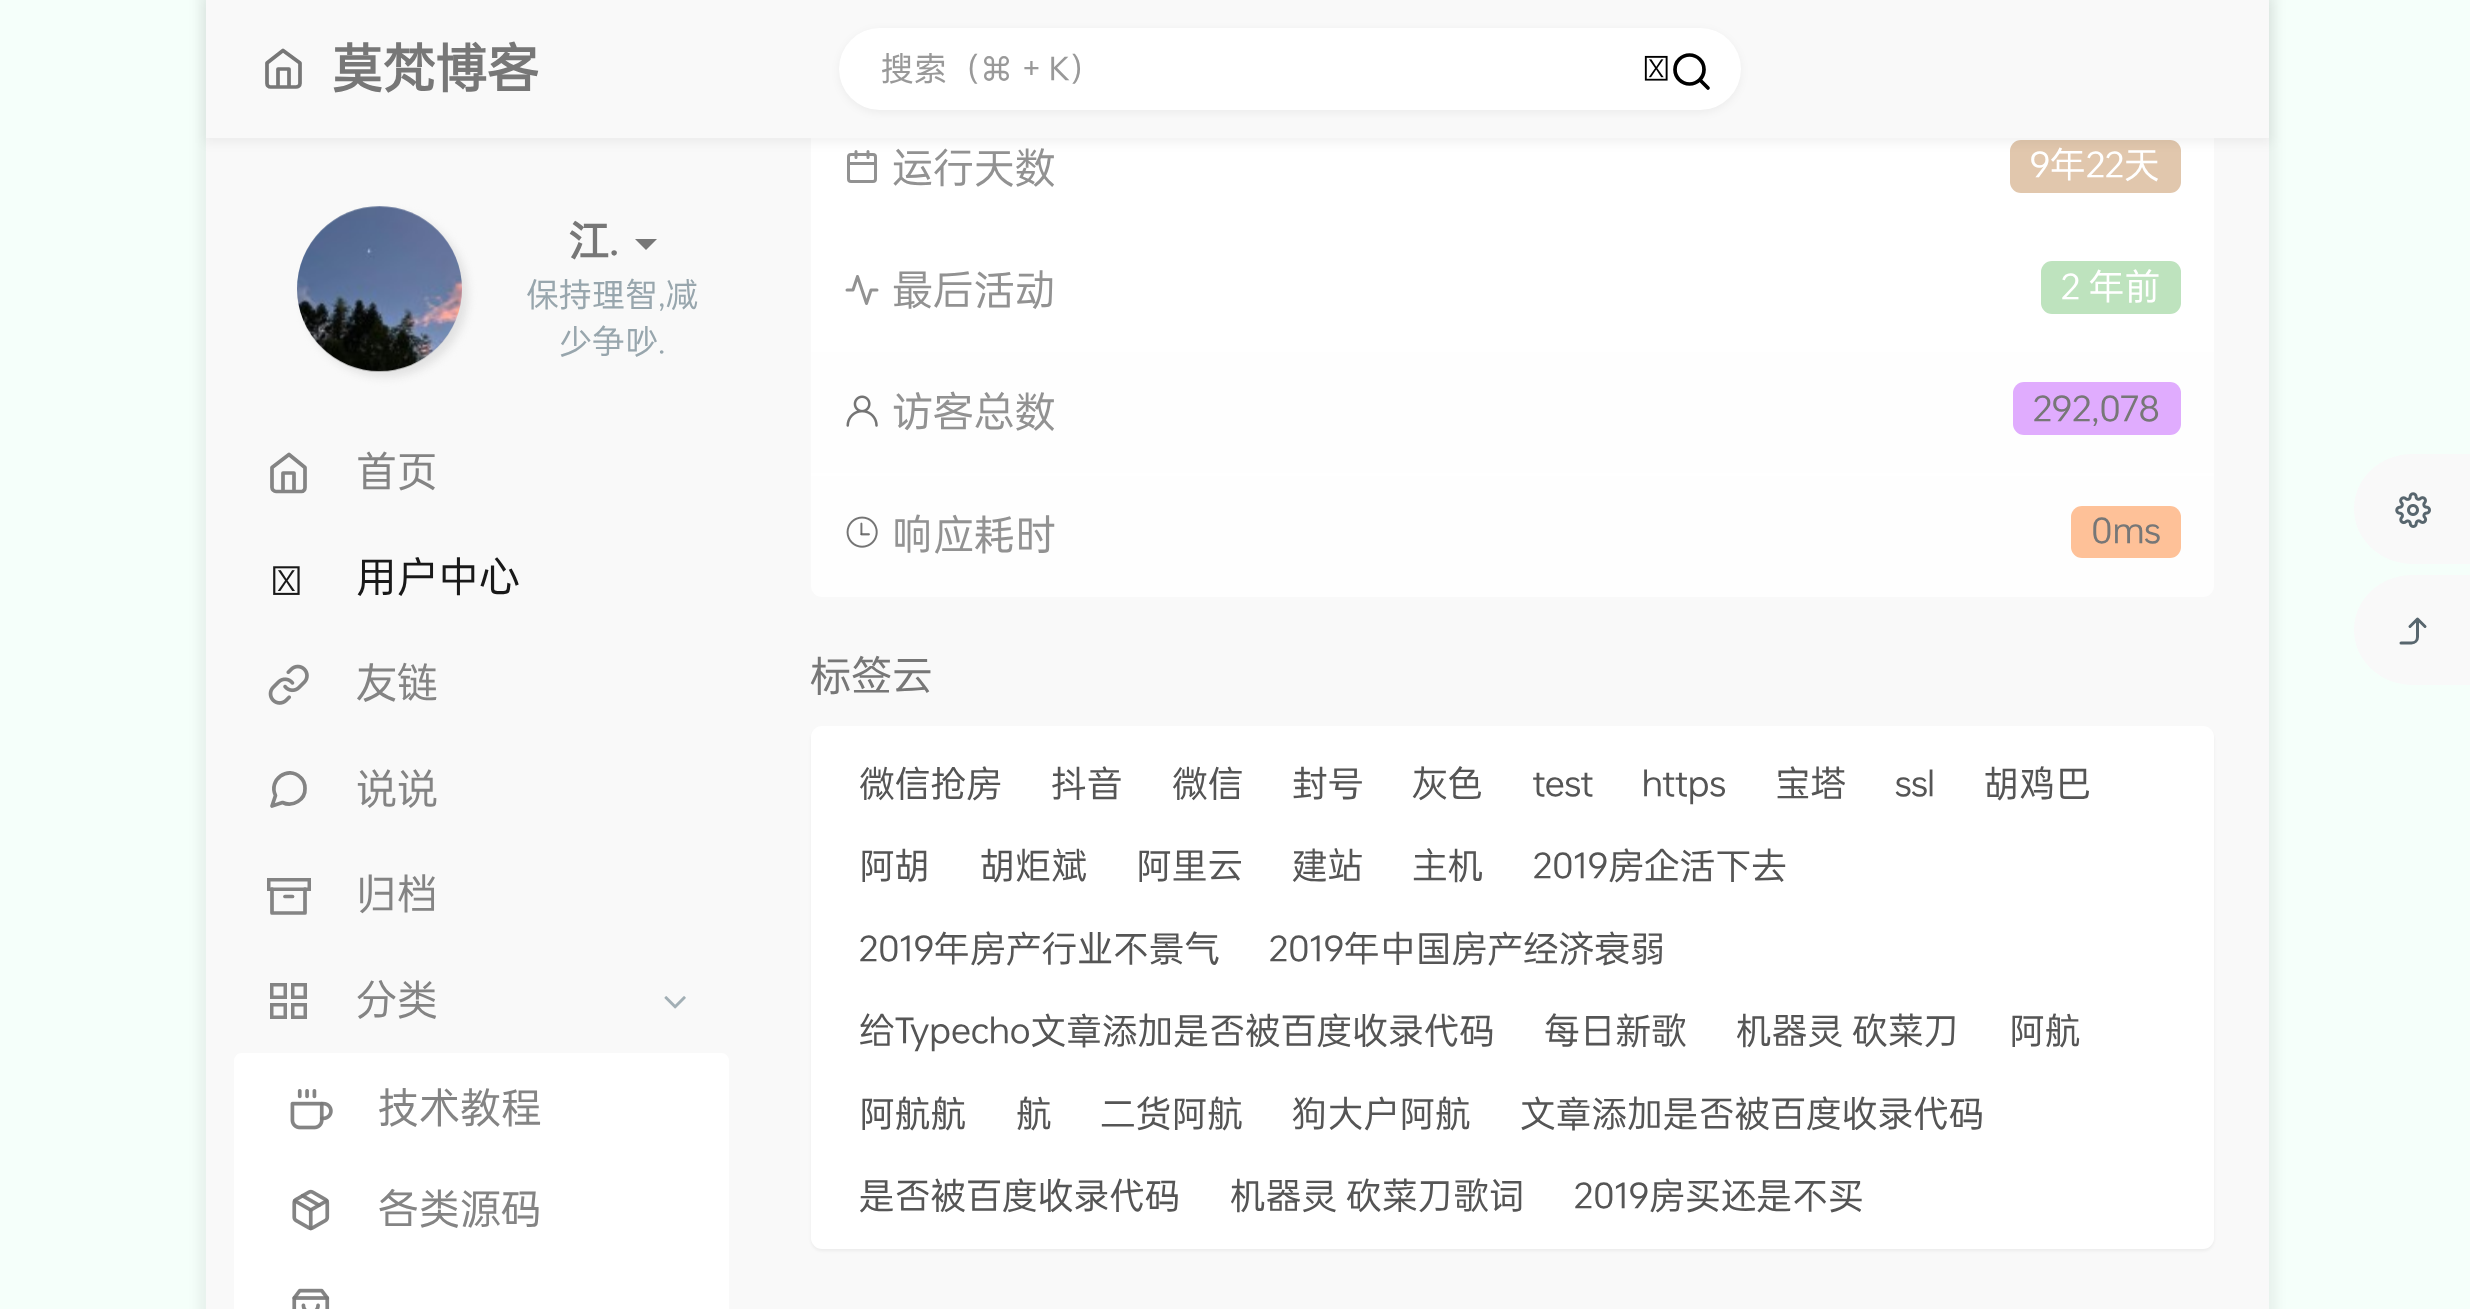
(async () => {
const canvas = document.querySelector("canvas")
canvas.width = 2470
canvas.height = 1309
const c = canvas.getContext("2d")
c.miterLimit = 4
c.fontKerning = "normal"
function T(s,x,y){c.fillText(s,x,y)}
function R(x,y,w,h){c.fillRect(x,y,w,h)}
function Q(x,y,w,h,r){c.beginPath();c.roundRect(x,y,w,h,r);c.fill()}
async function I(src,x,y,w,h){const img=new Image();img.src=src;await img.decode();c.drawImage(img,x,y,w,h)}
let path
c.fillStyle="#f5fffa"
R(0,0,2470,1309)
c.fillStyle="#0000000d"
c.filter="blur(5.5px)"
c.beginPath()
c.rect(198,-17,2079,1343)
c.fill()
c.filter="none"
c.fillStyle="#f9f9f9"
R(206,138,2063,1171)
c.fillStyle="#fff"
R(811,138,1403,214)
c.beginPath()
c.roundRect(848.5,154.5,27,27,2.5)
c.strokeStyle="#929292"
c.lineWidth=3
c.stroke()
path = new Path2D("M868 151.5v6m-12-6v6m-7.5 6h27")
c.lineCap="round"
c.lineJoin="round"
c.stroke(path)
c.fillStyle="#e1c7ad"
Q(2010,140,171,53,11)
c.fillStyle="#0000000d"
c.filter="blur(5.5px)"
c.beginPath()
c.rect(204,0,2068,143)
c.fill()
c.filter="none"
c.fillStyle="#f9f9f9"
R(206,0,2063,138)
c.font="bold 52px 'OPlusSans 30'"
c.fillStyle="#777"
T("莫梵博客",331,88)
path = new Path2D("M267 63l16-12.5l17 12.5v20.5c0 2-2 3.5-4 3.5h-25.5c-2 0-3.5-1.5-3.5-3.5zm11 24v-18h11v18")
c.strokeStyle="#777"
c.lineWidth=3.7
c.stroke(path)
c.fillStyle="#0000000d"
c.filter="blur(4px)"
c.beginPath()
c.roundRect(839,30,902,83,41.5)
c.fill()
c.filter="none"
c.fillStyle="#fff"
Q(839,28,902,82,41)
c.font="33px 'OPlusSans 30'"
c.fillStyle="#999"
T("搜索（",881,81)
c.font="33px DejaVu Sans"
T("⌘",980,81)
c.font="33px 'OPlusSans 30'"
T("+ K）",1022,81)
await I("1.png",1644,55,24,26)
c.beginPath()
c.arc(1689.5,69.5,14.5,0,7)
c.strokeStyle="#000"
c.stroke()
path = new Path2D("M1708 88l-8-8")
c.stroke(path)
c.fillStyle="#e1e1e1"
c.filter="blur(4px)"
c.beginPath()
c.roundRect(303,212,165,165,82.5)
c.fill()
c.filter="none"
await I("2.png",297,206,165,166)
c.font="bold 41px 'OPlusSans 30'"
c.fillStyle="#777"
T("江.",568,256)
path = new Path2D("M635 239h22l-11 11z")
c.fill(path)
c.font="33px 'OPlusSans 30'"
c.fillStyle="#98a6ad"
T("保持理智,减",526,307)
T("少争吵.",559,354)
path = new Path2D("M272 467.5l17-13l16 13v20c0 2-1.5 4-3.5 4h-25.5c-2 0-4-2-4-4zm11 24v-18.5h11v18.5")
c.strokeStyle="#848484"
c.stroke(path)
c.font="41px 'OPlusSans 30'"
c.fillStyle="#848484"
T("首页",356,487)
await I("3.png",273,566,27,29)
c.fillStyle="#191919"
T("用户中心",356,592)
await I("4.png",268,664,41,41)
c.fillStyle="#848484"
T("友链",356,698)
path = new Path2D("M305 788.5c.5 11-12 19-22.5 14l-10.5 3.5l3.5-10.5c-7.5-15.5 12.5-30.5 25-18c3 2.5 4.5 6.5 4.5 11z")
c.stroke(path)
T("说说",356,804)
path = new Path2D("M305 889v24h-33v-24")
c.stroke(path)
c.lineWidth=3.5
c.lineJoin="miter"
c.strokeRect(268.75,879.75,40.5,9.5)
path = new Path2D("M285 896.5h7.5")
c.lineWidth=3.7
c.lineJoin="round"
c.stroke(path)
T("归档",356,909)
c.lineWidth=3.5
c.lineJoin="miter"
c.strokeRect(271.75,984.75,13.5,12.5)
c.strokeRect(292.75,984.75,12.5,12.5)
c.strokeRect(271.75,1004.75,13.5,12.5)
c.strokeRect(292.75,1004.75,12.5,12.5)
T("分类",356,1015)
await I("5.png",664,996,22,13)
c.fillStyle="#fff"
path = new Path2D("M242 1053h479c4.5 0 8 3.5 8 8v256h-495v-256c0-4.5 3.5-8 8-8z")
c.fill(path)
await I("6.png",290,1089,43,41)
c.fillStyle="#848484"
T("技术教程",378,1123)
await I("7.png",292,1189,38,42)
T("各类源码",378,1224)
await I("8.png",292,1288,38,21)
c.fillStyle="#929292"
T("运行天数",892,183)
c.font="35.75px 'OPlusSans 30'"
c.fillStyle="#fff"
T("9年22天",2030,178)
path = new Path2D("M877 290h-6l-4.5 13.5l-9-27l-4.5 13.5h-6")
c.strokeStyle="#929292"
c.lineWidth=3
c.lineJoin="round"
c.stroke(path)
c.font="41px 'OPlusSans 30'"
c.fillStyle="#929292"
T("最后活动",892,305)
c.fillStyle="#bee3be"
Q(2041,261,140,53,11)
c.font="35.75px 'OPlusSans 30'"
c.fillStyle="#fff"
T("2 年前",2061,300)
c.fillStyle="#ffffffcc"
R(811,352,1403,124)
await I("9.png",846,395,32,32)
c.font="41px 'OPlusSans 30'"
c.fillStyle="#929292"
T("访客总数",892,427)
c.fillStyle="#e0acfe"
Q(2013,382,168,53,11)
c.font="35.75px 'OPlusSans 30'"
c.fillStyle="#777"
T("292,078",2033,422)
c.fillStyle="#ffffffcc"
c.beginPath()
c.roundRect(811,473,1403,124,[0,0,11,11])
c.fill()
await I("10.png",846,516,32,32)
c.font="41px 'OPlusSans 30'"
c.fillStyle="#929292"
T("响应耗时",892,550)
c.fillStyle="#fec198"
Q(2071,506,110,52,11)
c.font="35.75px 'OPlusSans 30'"
c.fillStyle="#777"
T("0ms",2091,544)
c.font="41px 'OPlusSans 30'"
T("标签云",810,691)
c.fillStyle="#0000000d"
c.filter="blur(1.5px)"
c.beginPath()
c.roundRect(811,729,1403,522,11)
c.fill()
c.filter="none"
c.fillStyle="#fff"
Q(811,726,1403,523,11)
c.font="35.75px 'OPlusSans 30'"
c.fillStyle="#555"
T("微信抢房",859,797)
T("抖音",1051,797)
T("微信",1172,797)
T("封号",1292,797)
T("灰色",1412,797)
T("test",1533,797)
T("https",1642,797)
T("宝塔",1775,797)
T("ssl",1895,797)
T("胡鸡巴",1984,797)
T("阿胡",859,879)
T("胡炬斌",980,879)
T("阿里云",1136,879)
T("建站",1292,879)
T("主机",1412,879)
T("2019房企活下去",1533,879)
T("2019年房产行业不景气",859,962)
T("2019年中国房产经济衰弱",1269,962)
T("给Typecho文章添加是否被百度收录代码",859,1044)
T("每日新歌",1544,1044)
T("机器灵 砍菜刀",1736,1044)
T("阿航",2009,1044)
T("阿航航",859,1127)
T("航",1016,1127)
T("二货阿航",1100,1127)
T("狗大户阿航",1292,1127)
T("文章添加是否被百度收录代码",1520,1127)
T("是否被百度收录代码",859,1209)
T("机器灵 砍菜刀歌词",1230,1209)
T("2019房买还是不买",1574,1209)
c.fillStyle="#f9f9f9"
path = new Path2D("M2413 575h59v110h-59c-33 0-59-25-59-55c0-31 26-55 59-55z")
c.fill(path)
path = new Path2D("M2410 626.5l7.5-7.5l7.5 7.5m-24 16.5h10.5c3.5 0 6-2.5 6-6v-18")
c.strokeStyle="#58666e"
c.stroke(path)
path = new Path2D("M2413 454h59v110h-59c-33 0-59-25-59-55c0-31 26-55 59-55z")
c.fill(path)
await I("11.png",2395,492,36,36)
})()
